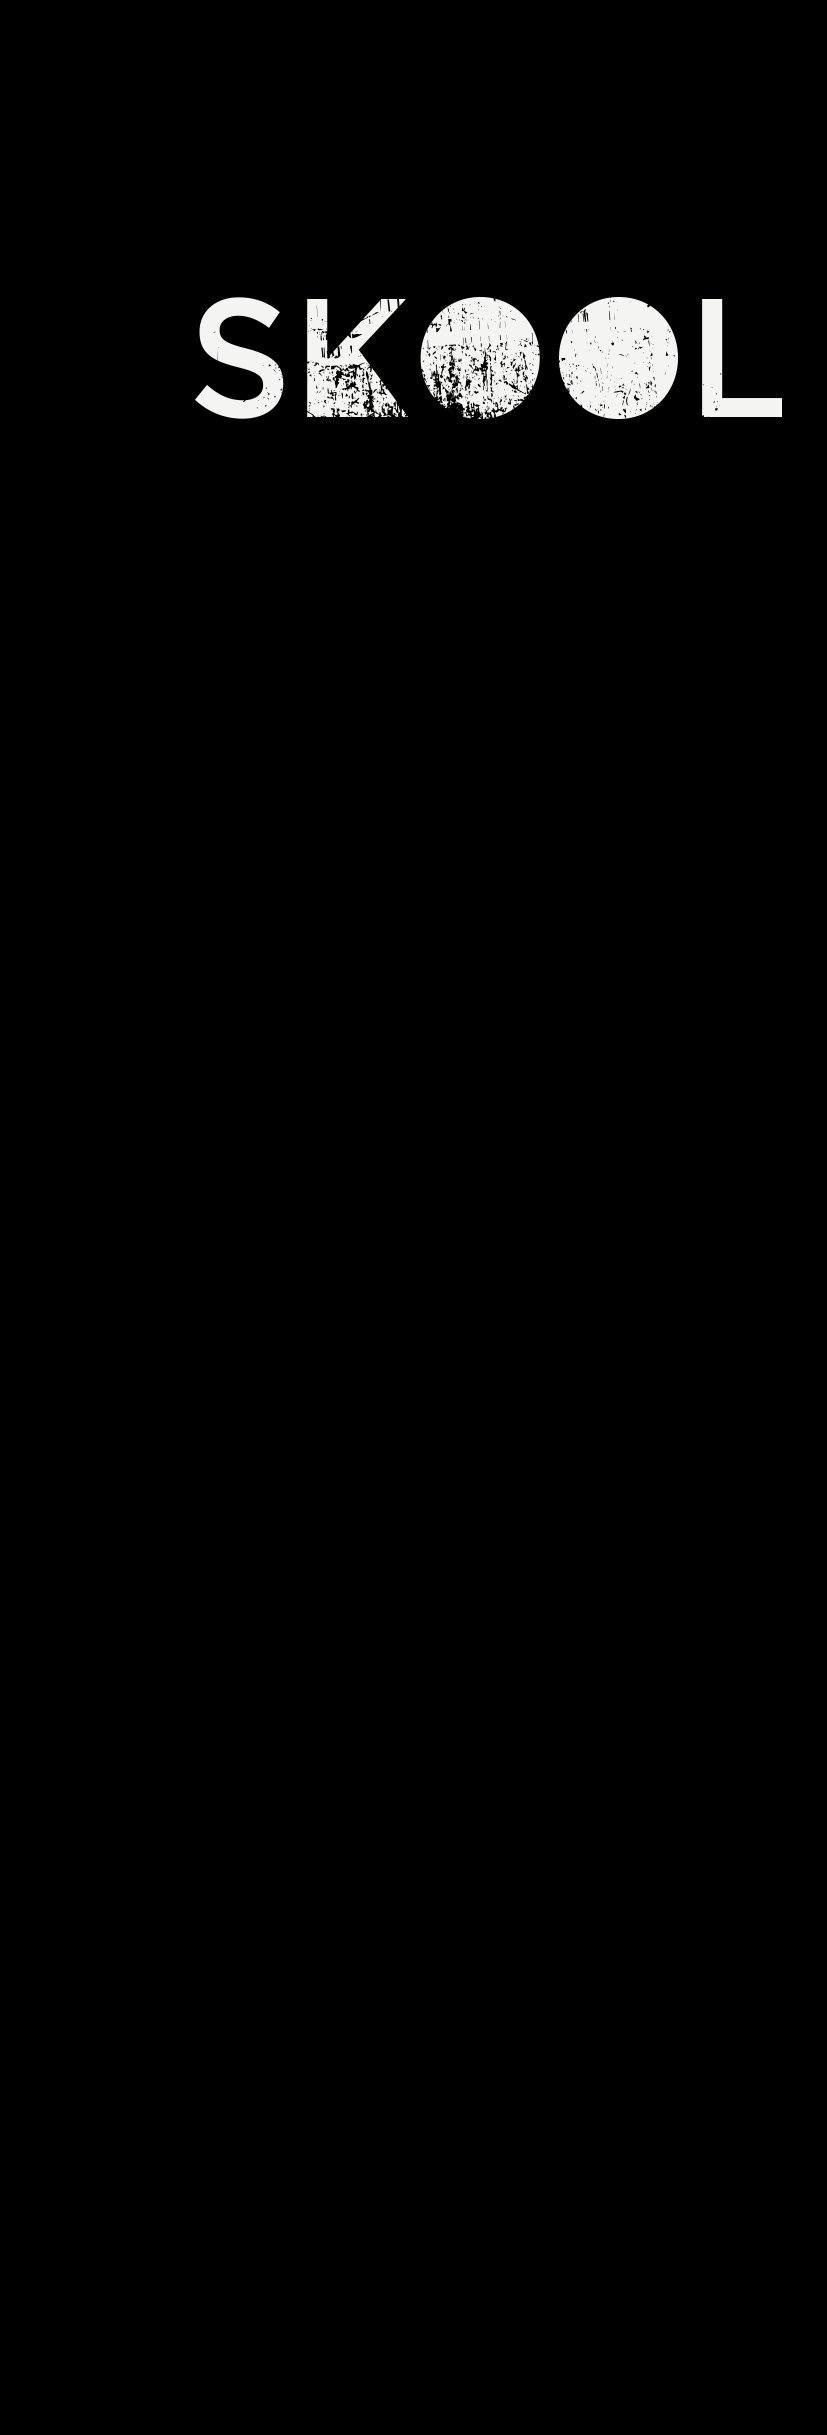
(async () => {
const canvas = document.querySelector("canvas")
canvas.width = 827
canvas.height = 2435
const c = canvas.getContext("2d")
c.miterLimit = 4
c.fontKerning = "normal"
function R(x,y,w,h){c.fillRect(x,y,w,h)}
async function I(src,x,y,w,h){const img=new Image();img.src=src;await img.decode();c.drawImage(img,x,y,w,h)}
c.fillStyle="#000"
R(0,0,827,2435)
await I("1.png",195,297,587,122)
})()
